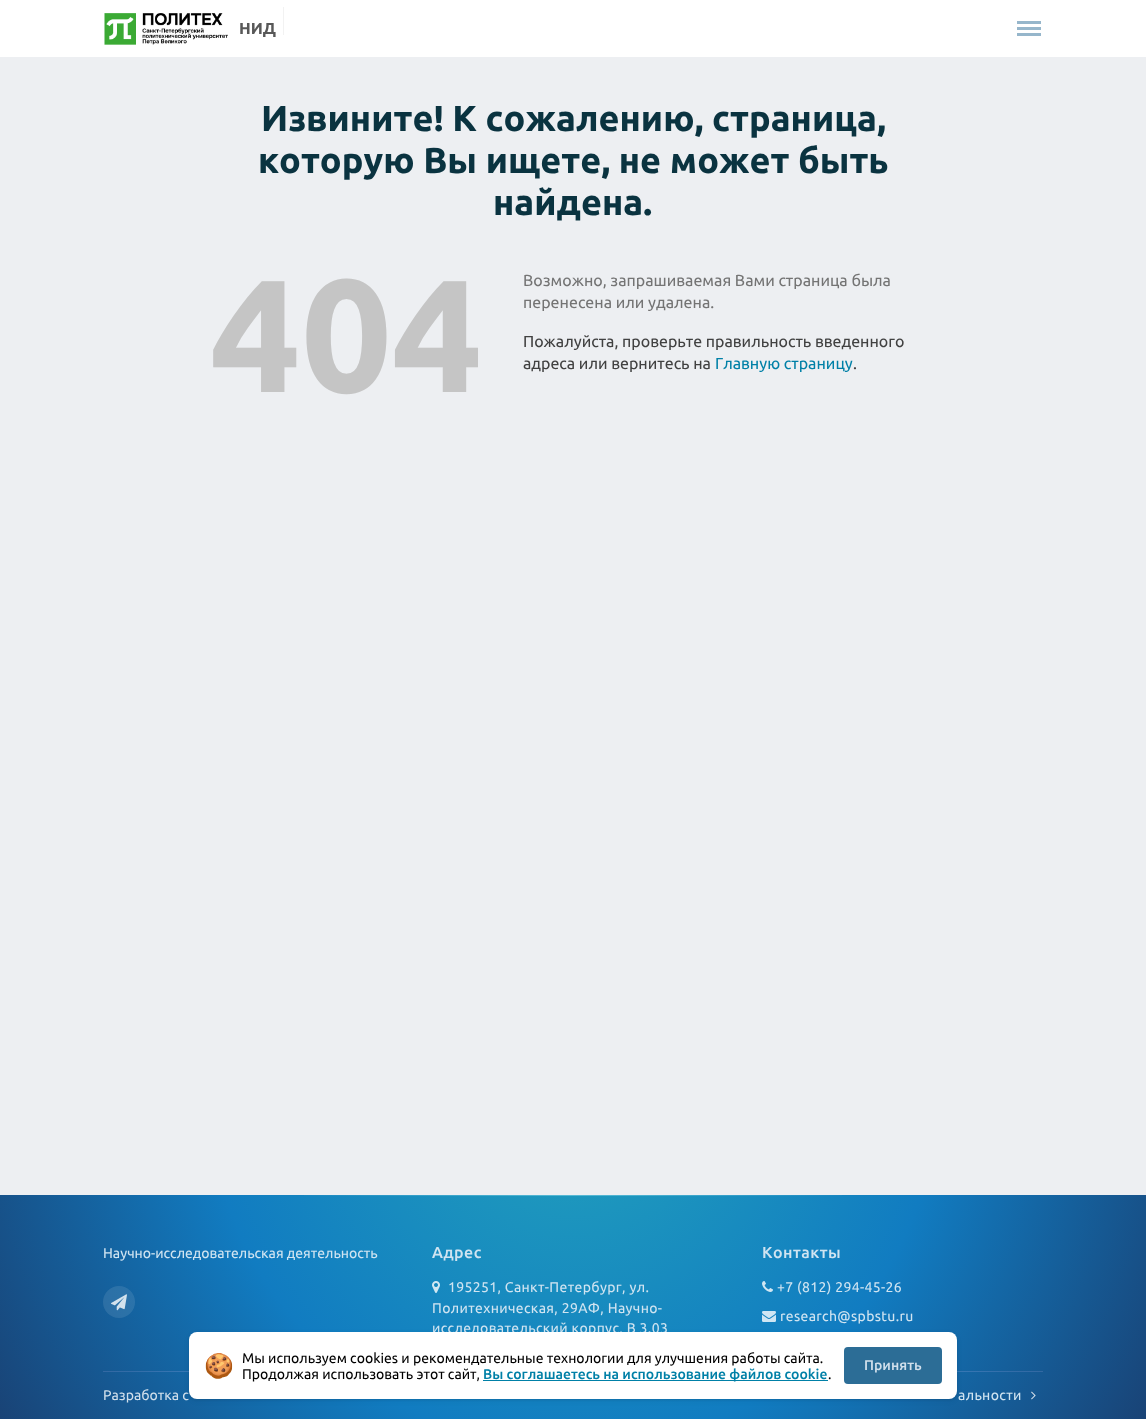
(async () => {
const canvas = document.querySelector("canvas")
canvas.width = 1146
canvas.height = 1419
const c = canvas.getContext("2d")
c.miterLimit = 4
c.fontKerning = "none"
function T(s,x,y){c.fillText(s,x,y)}
function R(x,y,w,h){c.fillRect(x,y,w,h)}
function Q(x,y,w,h,r){c.beginPath();c.roundRect(x,y,w,h,r);c.fill()}
async function I(src,x,y,w,h){const img=new Image();img.src=src;await img.decode();c.drawImage(img,x,y,w,h)}
let gradient
c.fillStyle="#edeff2"
R(0,0,1146,1419)
c.fillStyle="#fff"
R(0,0,1146,57)
await I("1.png",104,13,124,32)
c.font="bold 16px Ubuntu"
c.fillStyle="#585858"
T("НИД",239,34)
c.fillStyle="#f2f2f2"
R(283,7,1,28)
c.fillStyle="#96b6cb"
R(1017,27,24,3)
R(1017,21,24,3)
R(1017,33,24,3)
c.font="bold 36px Ubuntu"
c.fillStyle="#0a3340"
T("Извините! К сожалению, страница,",261,131)
T("которую Вы ищете, не может быть",258,173)
T("найдена.",493,215)
c.font="bold 160px Ubuntu"
c.fillStyle="#c5c5c5"
T("404",210,392)
c.font="16px Ubuntu"
c.fillStyle="#747474"
T("Возможно, запрашиваемая Вами страница была",523,286)
T("перенесена или удалена.",523,308)
c.fillStyle="#414141"
T("Пожалуйста, проверьте правильность введенного",523,347)
T("адреса или вернитесь на",523,369)
c.fillStyle="#0080a7"
T("Главную страницу",715,369)
c.fillStyle="#414141"
T(".",853,369)
gradient = c.createRadialGradient(573,1083,0,573,1083,664)
gradient.addColorStop(.1,"#1f9bbd")
gradient.addColorStop(.55,"#117cc1")
gradient.addColorStop(1,"#194376")
c.fillStyle = gradient
R(0,1195,1146,224)
gradient = c.createLinearGradient(6.6,1134,1139,1257)
gradient.addColorStop(.25,"#c4faff00")
gradient.addColorStop(.5,"#c4faff59")
gradient.addColorStop(.75,"#c4faff00")
c.fillStyle = gradient
R(304,1195,538,1)
c.font="14px Ubuntu"
c.fillStyle="#d0e4f1"
T("Научно-исследовательская деятельность",103,1258)
c.fillStyle="#ffffff1a"
c.beginPath()
c.arc(119,1302,16,0,7)
c.fill()
await I("2.png",111,1294,16,17)
c.letterSpacing="0.5px"
c.font="500 16px Ubuntu"
c.fillStyle="#d0e4f1"
T("Адрес",432,1258)
await I("3.png",432,1281,8,12)
c.letterSpacing="0.35px"
c.font="14px Ubuntu"
T("195251, Санкт-Петербург, ул.",448,1292)
T("Политехническая, 29АФ, Научно-",432,1313)
T("исследовательский корпус, В 3.03",432,1333)
c.letterSpacing="0.5px"
c.font="500 16px Ubuntu"
T("Контакты",762,1258)
await I("4.png",762,1281,11,11)
c.letterSpacing="0.35px"
c.font="14px Ubuntu"
T("+7 (812) 294-45-26",777,1292)
await I("5.png",762,1311,14,11)
T("research@spbstu.ru",780,1321)
gradient = c.createLinearGradient(108,1323,1038,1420)
gradient.addColorStop(.03,"#d7c4ff26")
gradient.addColorStop(.5,"#ffffff59")
gradient.addColorStop(.97,"#d7c4ff26")
c.fillStyle = gradient
R(103,1371,940,1)
c.letterSpacing="0px"
c.fillStyle="#d0dfeb"
T("Разработка с",103,1400)
c.letterSpacing="0.35px"
c.fillStyle="#d0e4f1"
T("альности",958,1400)
await I("6.png",1031,1391,5,9)
c.fillStyle="#00000012"
c.filter="blur(1px)"
c.beginPath()
c.roundRect(189,1333,768,67,8)
c.fill()
c.filter="none"
c.fillStyle="#0a254017"
c.filter="blur(2.5px)"
c.beginPath()
c.roundRect(189,1334,768,67,8)
c.fill()
c.filter="none"
c.fillStyle="#fff"
Q(189,1332,768,67,8)
c.letterSpacing="0px"
c.font="24px Noto Color Emoji"
c.fillStyle="#000"
T("🍪",204,1374)
c.font="14px Ubuntu"
T("Мы используем cookies и рекомендательные технологии для улучшения работы сайта.",242,1363)
T("Продолжая использовать этот сайт,",242,1379)
c.fillStyle="#0080a7"
R(483,1380,345,1)
c.font="500 14px Ubuntu"
T("Вы соглашаетесь на использование файлов cookie",483,1379)
c.font="14px Ubuntu"
c.fillStyle="#000"
T(".",828,1379)
c.fillStyle="#2c6d96"
Q(844,1347,98,37,4)
c.font="500 14px Ubuntu"
c.fillStyle="#d0dfeb"
T("Принять",864,1370)
})()
